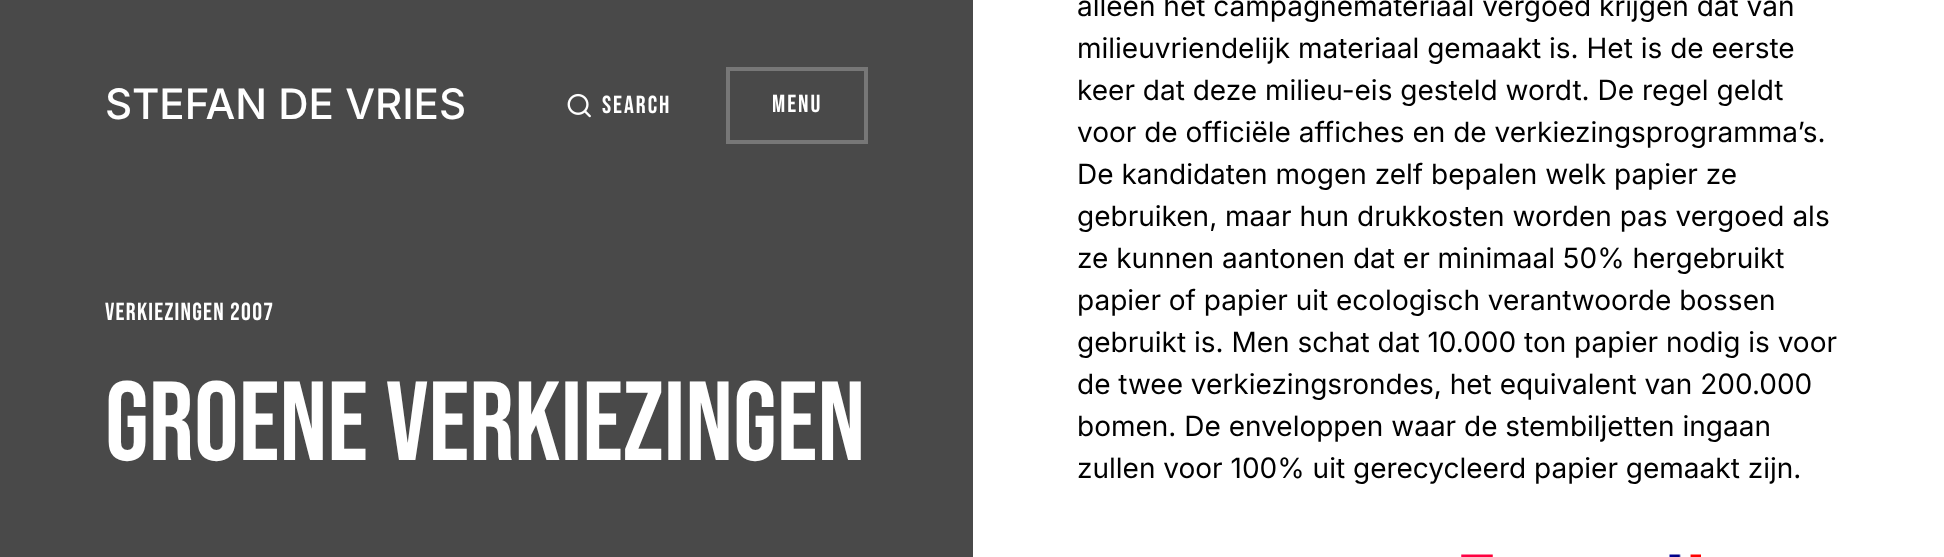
(async () => {
const canvas = document.querySelector("canvas")
canvas.width = 1944
canvas.height = 557
const c = canvas.getContext("2d")
c.miterLimit = 4
c.fontKerning = "normal"
function T(s,x,y){c.fillText(s,x,y)}
function R(x,y,w,h){c.fillRect(x,y,w,h)}
async function I(src,x,y,w,h){const img=new Image();img.src=src;await img.decode();c.drawImage(img,x,y,w,h)}
c.fillStyle="#fff"
R(0,0,1944,557)
c.fillStyle="#494949"
R(0,0,973,557)
c.font="500 42px Inter"
c.fillStyle="#fff"
T("STEFAN DE VRIES",105,119)
await I("1.png",567,93,24,25)
c.letterSpacing="2px"
c.font="24.5px Bebas Neue"
T("Search",602,113)
c.strokeStyle="#777"
c.lineWidth=4
c.strokeRect(728,69,138,73)
T("Menu",772,112)
c.letterSpacing="1.25px"
T("Verkiezingen 2007",105,320)
c.letterSpacing="0px"
c.font="112px Bebas Neue"
T("Groene verkiezingen",105,460)
c.font="28px Inter"
c.fillStyle="#000"
T("alleen het campagnemateriaal vergoed krijgen dat van",1077,16)
T("milieuvriendelijk materiaal gemaakt is. Het is de eerste",1077,58)
T("keer dat deze milieu-eis gesteld wordt. De regel geldt",1077,100)
T("voor de officiële affiches en de verkiezingsprogramma’s.",1077,142)
T("De kandidaten mogen zelf bepalen welk papier ze",1077,184)
T("gebruiken, maar hun drukkosten worden pas vergoed als",1077,226)
T("ze kunnen aantonen dat er minimaal 50% hergebruikt",1077,268)
T("papier of papier uit ecologisch verantwoorde bossen",1077,310)
T("gebruikt is. Men schat dat 10.000 ton papier nodig is voor",1077,352)
T("de twee verkiezingsrondes, het equivalent van 200.000",1077,394)
T("bomen. De enveloppen waar de stembiljetten ingaan",1077,436)
T("zullen voor 100% uit gerecycleerd papier gemaakt zijn.",1077,478)
await I("2.png",1461,554,32,3)
await I("3.png",1669,554,32,3)
})()
